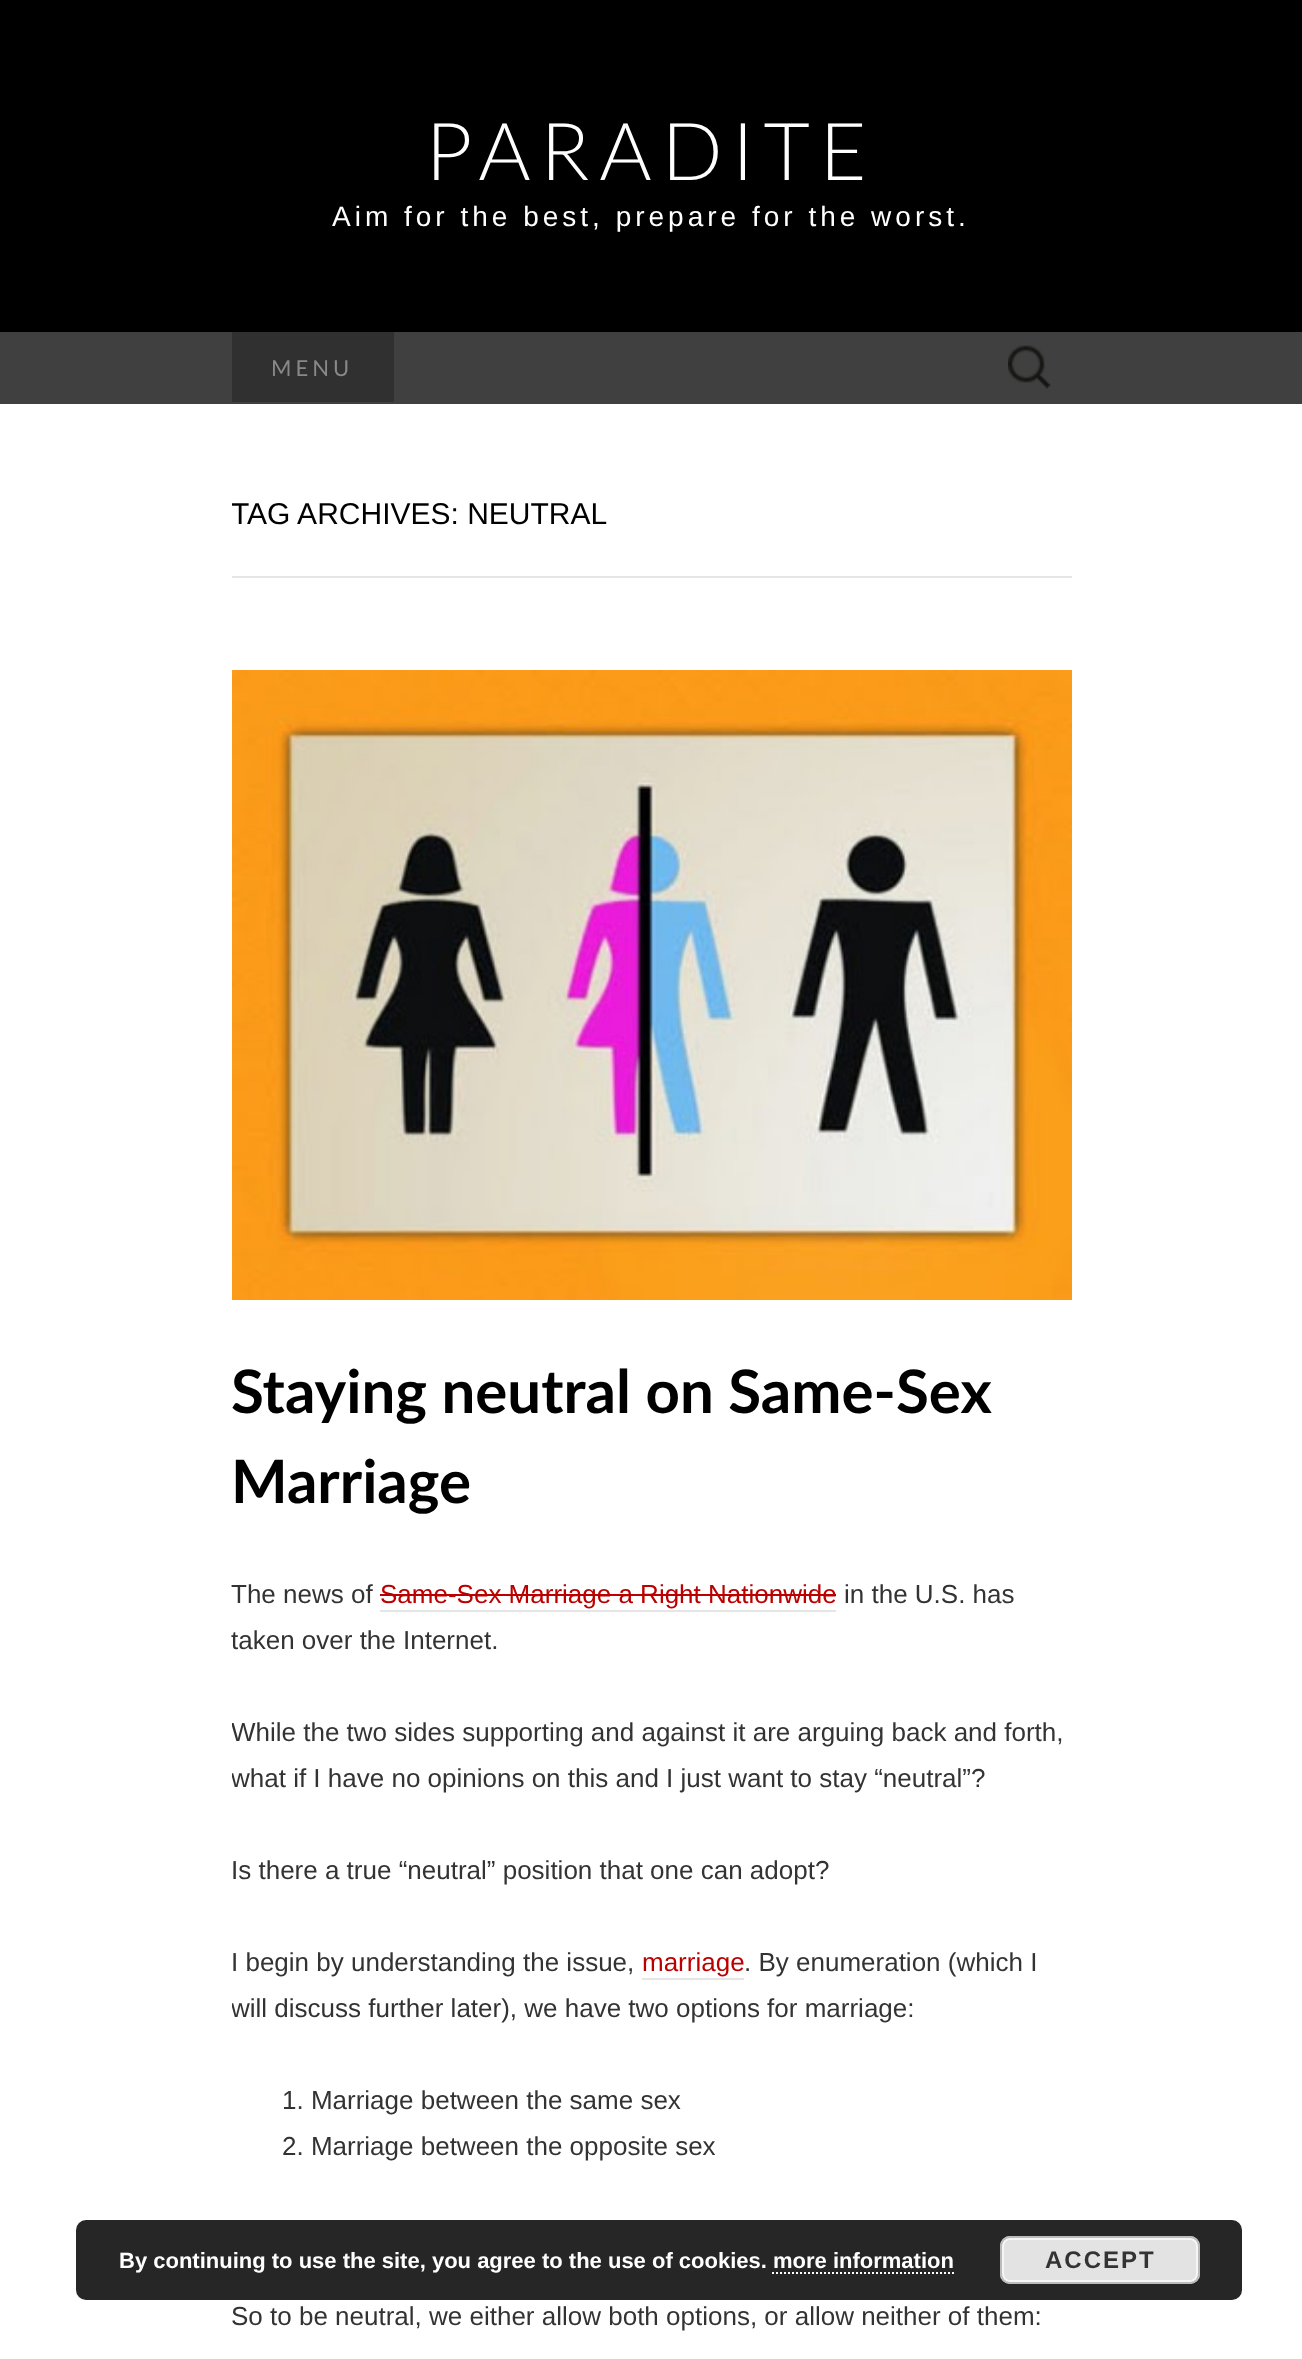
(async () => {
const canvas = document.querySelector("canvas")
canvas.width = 1302
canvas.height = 2359
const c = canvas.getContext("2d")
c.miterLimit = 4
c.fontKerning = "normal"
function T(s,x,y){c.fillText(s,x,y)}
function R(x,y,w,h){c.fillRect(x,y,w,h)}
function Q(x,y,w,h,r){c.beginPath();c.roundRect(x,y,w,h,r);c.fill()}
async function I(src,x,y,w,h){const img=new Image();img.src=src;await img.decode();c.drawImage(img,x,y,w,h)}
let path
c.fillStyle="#fff"
R(0,0,1302,2359)
c.fillStyle="#000"
R(0,0,1302,332)
c.letterSpacing="10px"
c.font="300 80px Lato"
c.fillStyle="#fff"
T("PARADITE",426,180)
c.letterSpacing="4px"
c.font="28px Liberation Sans"
T("Aim for the best, prepare for the worst.",332,226)
c.fillStyle="#404040"
R(0,332,1302,72)
c.fillStyle="#303030"
R(232,332,162,70)
c.font="22px Lato"
c.fillStyle="#888"
T("MENU",271,376)
await I("1.png",1008,345,43,44)
c.fillStyle="#e6e6e6"
R(232,576,840,2)
c.save()
c.beginPath()
c.rect(232,404,840,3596)
c.clip()
c.letterSpacing="0px"
c.font="30px Liberation Sans"
c.fillStyle="#000"
T("TAG ARCHIVES: NEUTRAL",231,524)
c.restore()
await I("2.png",232,670,840,630)
c.letterSpacing="0px"
c.font="bold 60px Lato"
c.fillStyle="#000"
T("Staying neutral on Same-Sex",231,1413)
T("Marriage",231,1503)
c.font="26px Liberation Sans"
c.fillStyle="#333"
T("The news of",231,1603)
c.fillStyle="#b00"
T("Same-Sex Marriage a Right Nationwide",380,1603)
c.fillStyle="#e6e6e6"
R(380,1610,456,2)
c.fillStyle="#b00"
R(380,1594,456,2)
c.fillStyle="#333"
T("in the U.S. has",844,1603)
T("taken over the Internet.",231,1649)
c.save()
c.beginPath()
c.rect(232,404,840,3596)
c.clip()
T("While the two sides supporting and against it are arguing back and forth,",231,1741)
T("what if I have no opinions on this and I just want to stay “neutral”?",231,1787)
c.restore()
T("Is there a true “neutral” position that one can adopt?",231,1879)
T("I begin by understanding the issue,",231,1971)
c.fillStyle="#b00"
T("marriage",642,1971)
c.fillStyle="#e6e6e6"
R(642,1978,102,2)
c.fillStyle="#333"
T(". By enumeration (which I",744,1971)
c.save()
c.beginPath()
c.rect(232,404,840,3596)
c.clip()
T("will discuss further later), we have two options for marriage:",231,2017)
c.restore()
T("1. Marriage between the same sex",282,2109)
T("2. Marriage between the opposite sex",282,2155)
T("So to be neutral, we either allow both options, or allow neither of them:",231,2325)
c.fillStyle="#000000d9"
Q(76,2220,1166,80,10)
c.font="bold 22px Liberation Sans"
c.fillStyle="#fff"
T("By continuing to use the site, you agree to the use of cookies. more information",119,2268)
c.fillStyle="#e3e3e3"
Q(1000,2236,200,48,10)
c.beginPath()
c.roundRect(1003,2239,194,42,7)
c.strokeStyle="#f6f6f6"
c.lineWidth=2
c.stroke()
c.beginPath()
c.roundRect(1001,2237,198,46,9)
c.strokeStyle="#bbb"
c.stroke()
c.letterSpacing="2px"
c.font="bold 24px Liberation Sans"
c.fillStyle="#333"
T("ACCEPT",1045,2268)
path = new Path2D("M772 2273h182")
c.strokeStyle="#fff"
c.setLineDash([2,2])
c.stroke(path)
})()
